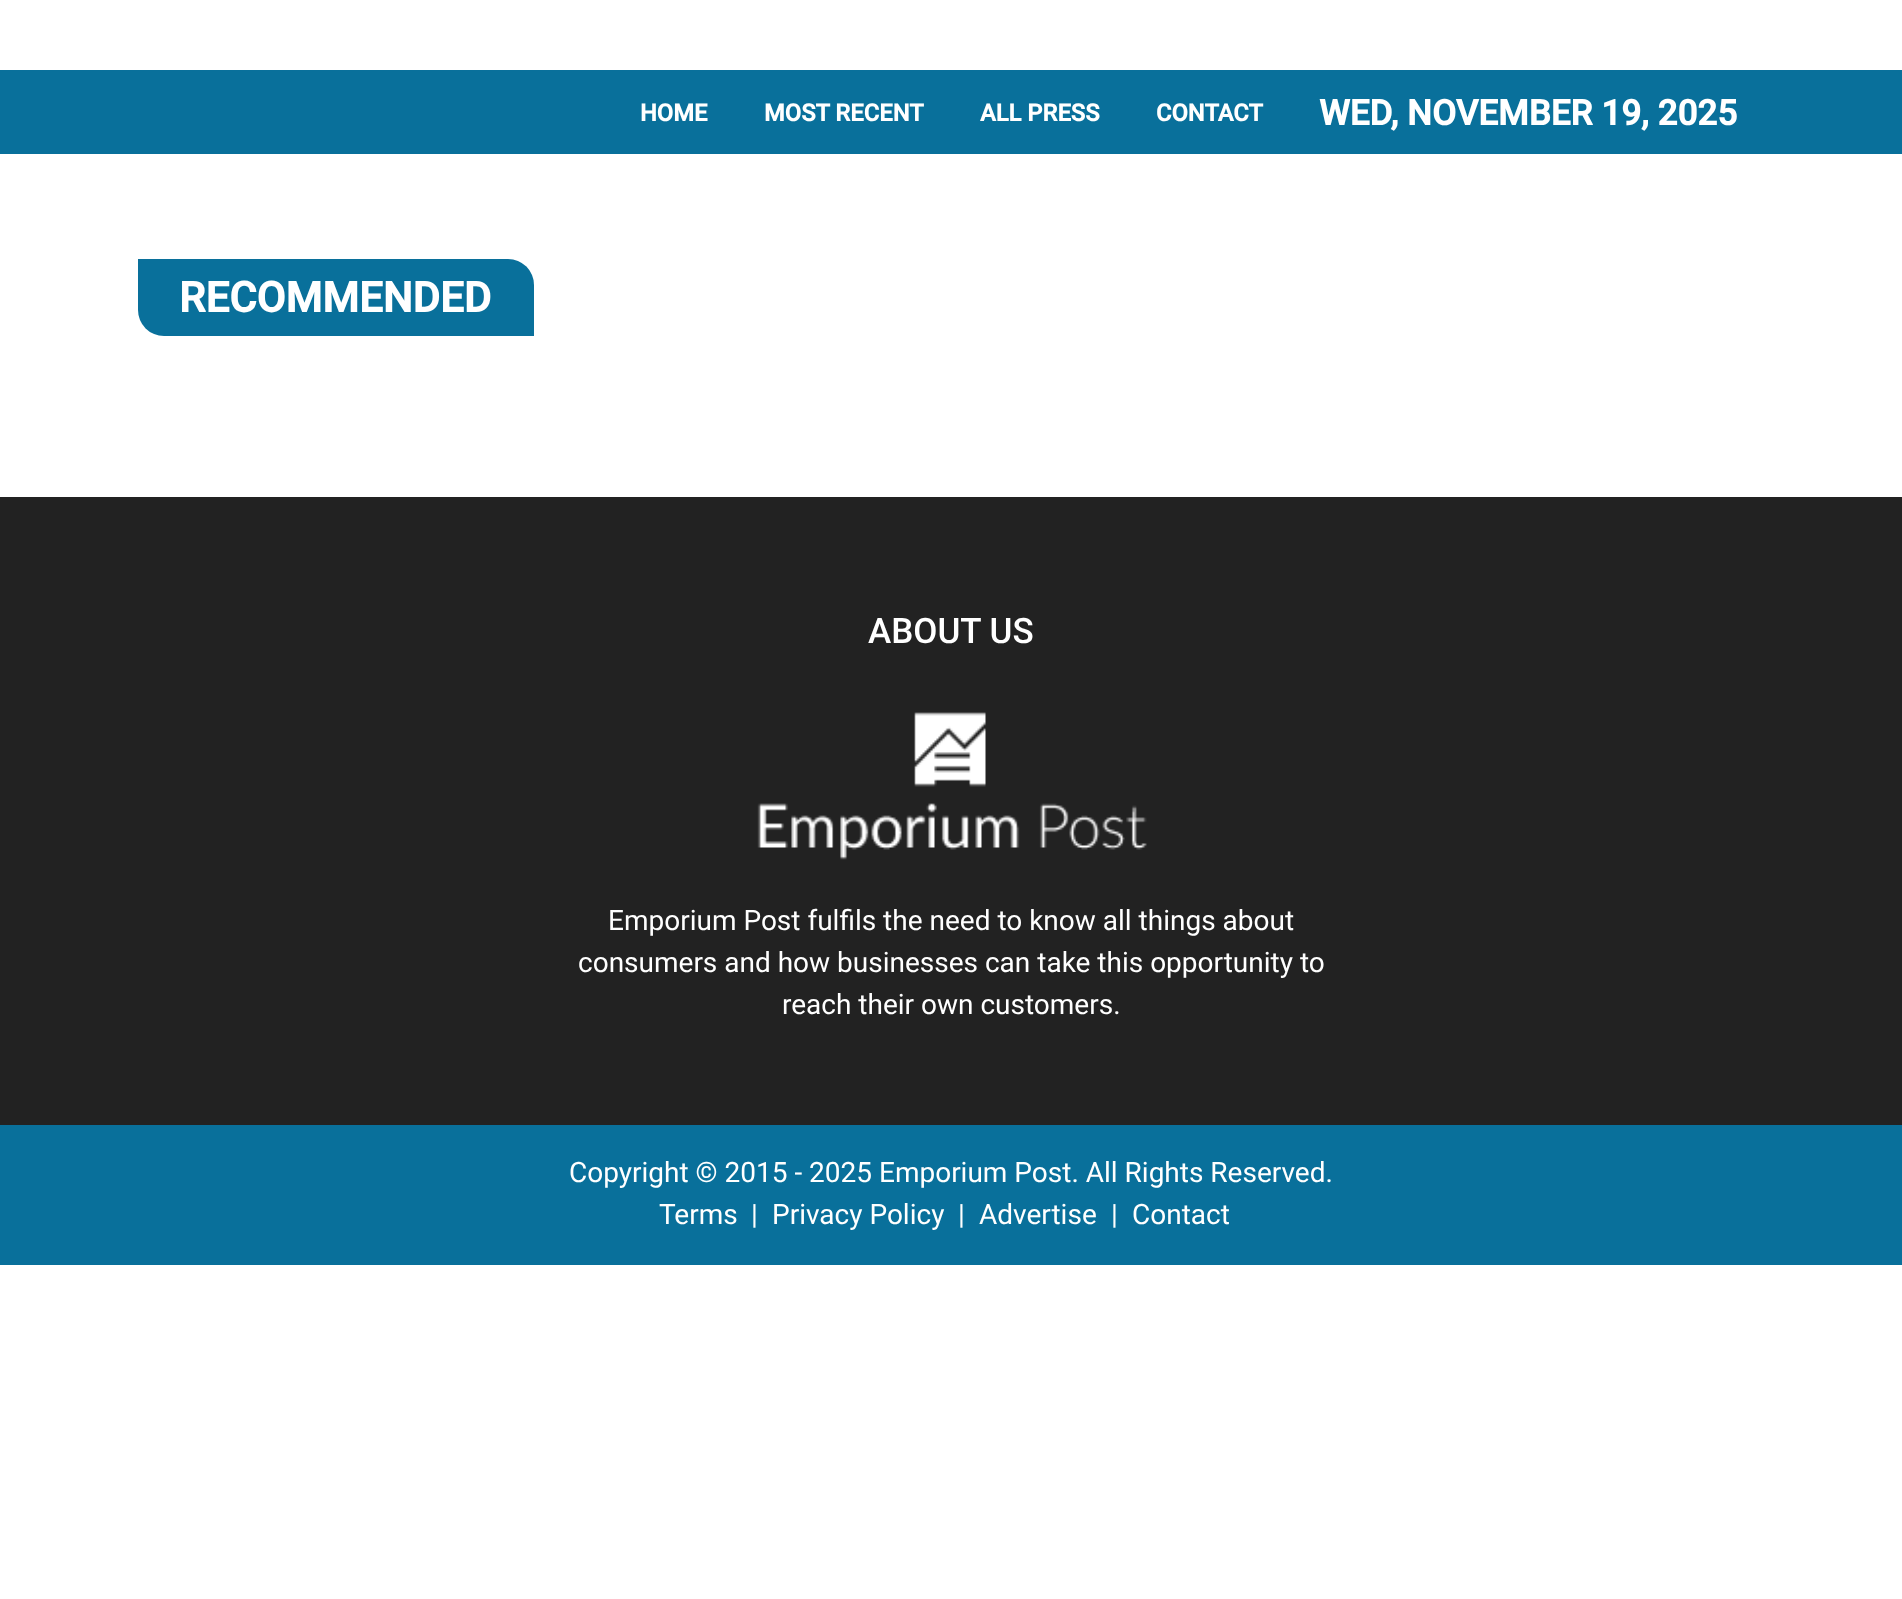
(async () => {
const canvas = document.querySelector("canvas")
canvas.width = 1902
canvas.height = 1599
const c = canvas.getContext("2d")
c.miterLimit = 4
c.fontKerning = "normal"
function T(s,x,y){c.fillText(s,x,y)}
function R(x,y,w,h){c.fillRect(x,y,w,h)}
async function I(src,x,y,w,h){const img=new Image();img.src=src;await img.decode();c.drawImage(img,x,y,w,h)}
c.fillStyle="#fff"
R(0,0,1902,1599)
c.fillStyle="#09709b"
R(0,70,1902,84)
c.font="bold 23.75px Roboto"
c.fillStyle="#fff"
T("HOME",640,121)
T("MOST RECENT",764,121)
T("ALL PRESS",980,121)
T("CONTACT",1156,121)
c.font="bold 35px Roboto"
T("WED, NOVEMBER 19, 2025",1319,125)
c.fillStyle="#09709b"
c.beginPath()
c.roundRect(138,259,396,77,[0,26,0,26])
c.fill()
c.font="bold 42px Roboto"
c.fillStyle="#fff"
T("RECOMMENDED",179,312)
c.fillStyle="#222"
R(0,497,1902,628)
c.font="500 35px Roboto"
c.fillStyle="#fff"
T("ABOUT US",868,643)
await I("1.png",757,712,390,148)
c.font="28px Roboto"
T("Emporium Post fulfils the need to know all things about",608,930)
T("consumers and how businesses can take this opportunity to",578,972)
T("reach their own customers.",782,1014)
c.fillStyle="#09709b"
R(0,1125,1902,140)
c.fillStyle="#fff"
T("Copyright © 2015 - 2025 Emporium Post. All Rights Reserved.",569,1182)
T("Terms",659,1224)
T("|",751,1224)
T("Privacy Policy",772,1224)
T("|",958,1224)
T("Advertise",979,1224)
T("|",1111,1224)
T("Contact",1132,1224)
})()
